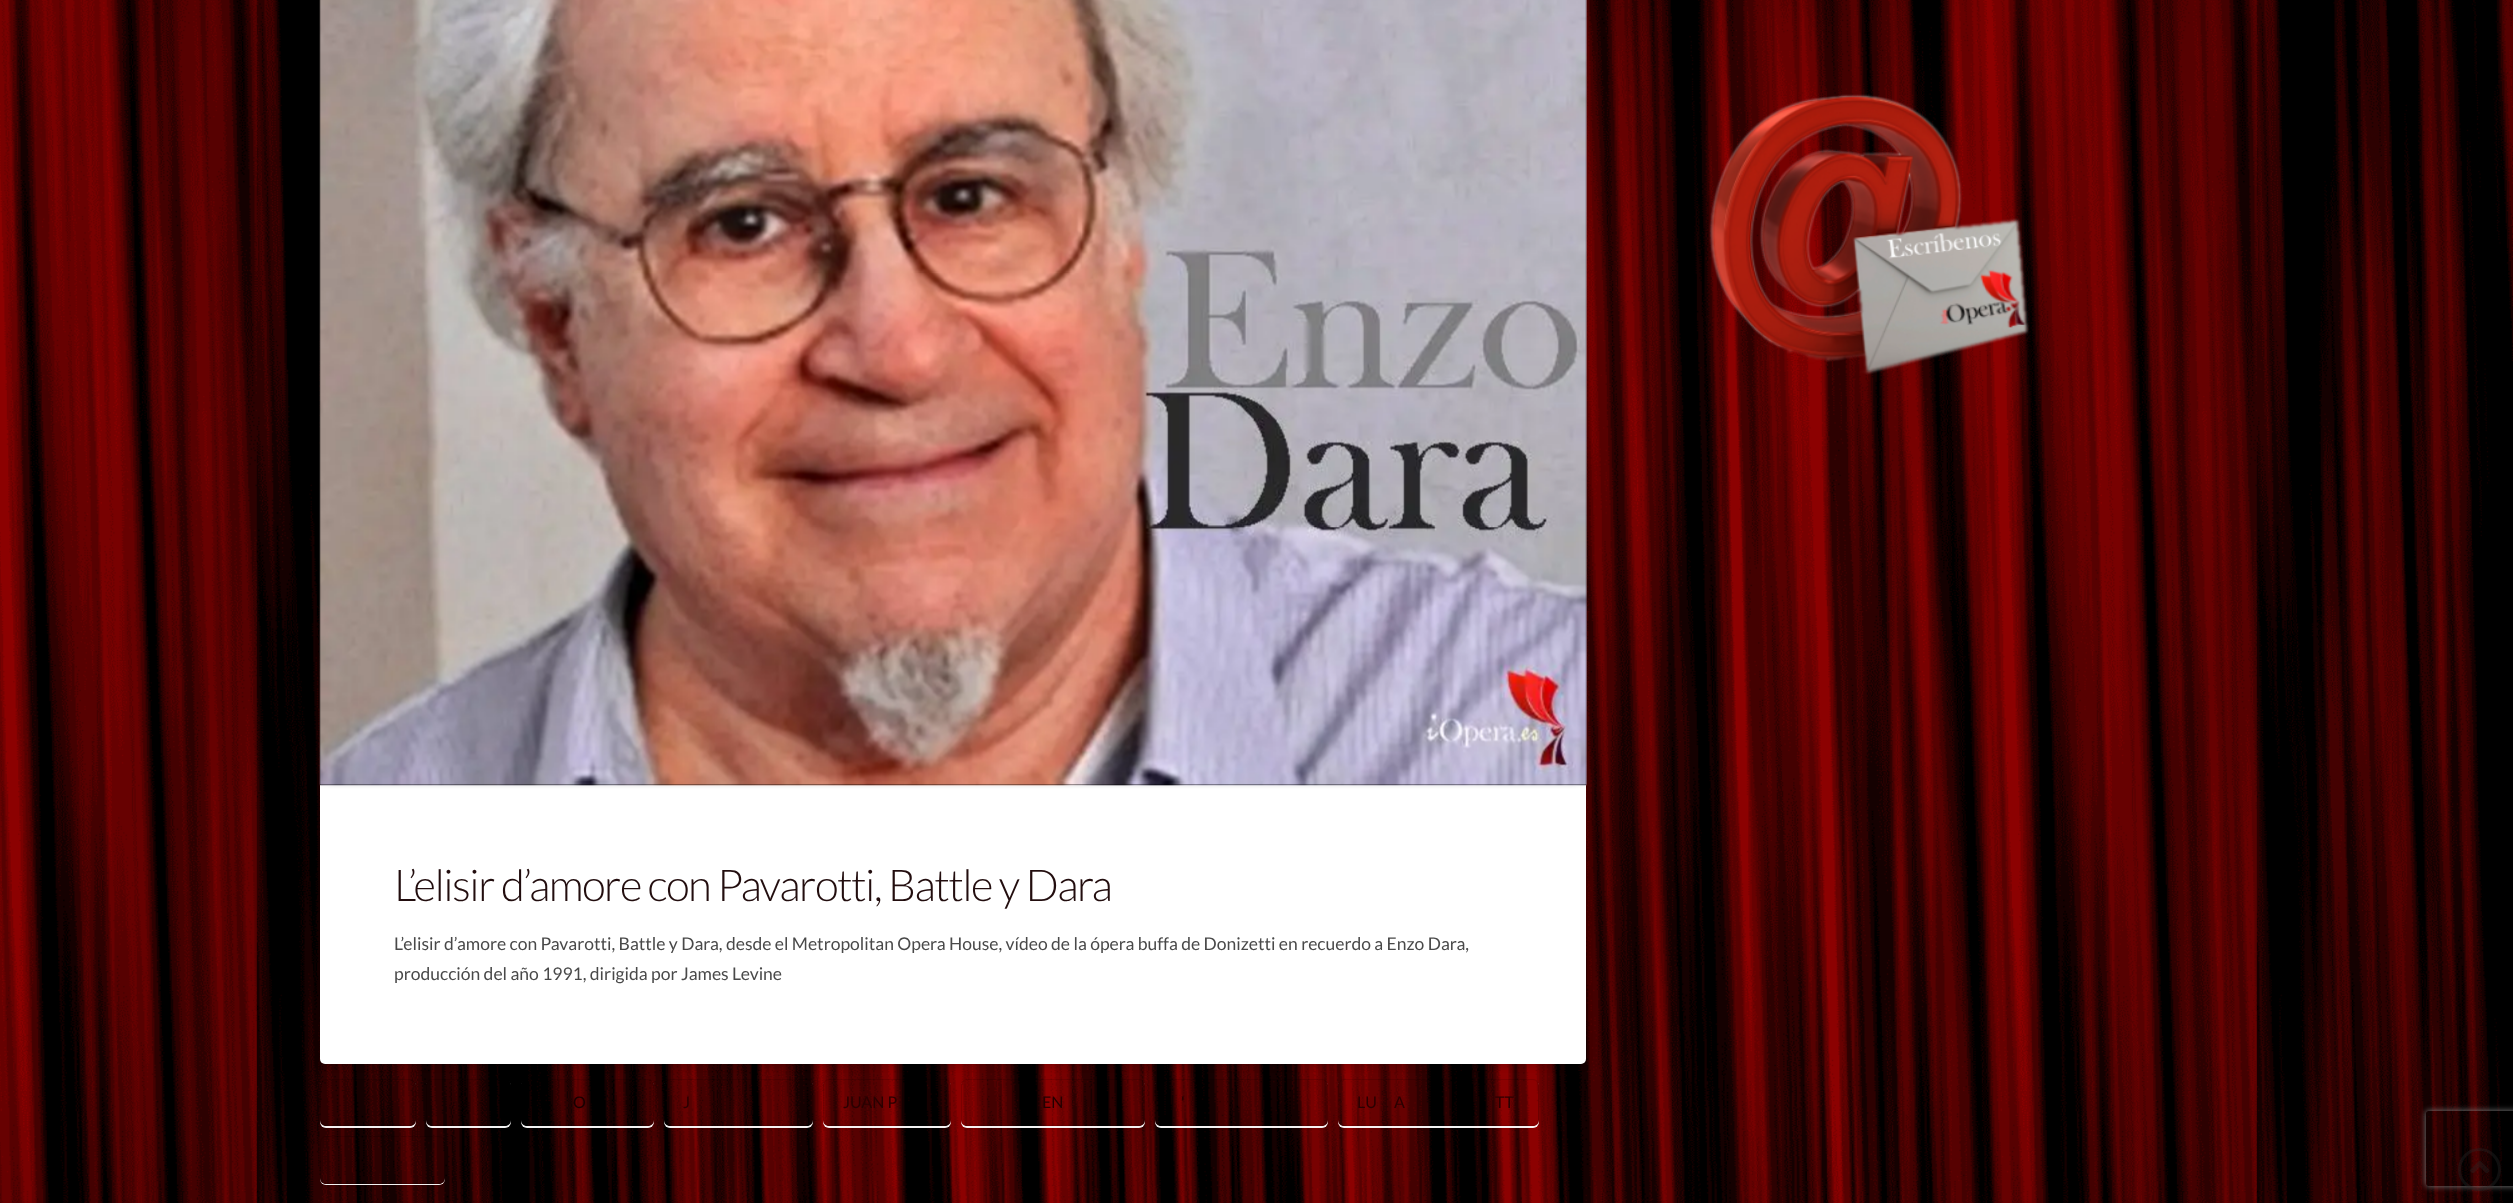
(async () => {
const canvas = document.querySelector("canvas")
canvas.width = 2513
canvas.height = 1203
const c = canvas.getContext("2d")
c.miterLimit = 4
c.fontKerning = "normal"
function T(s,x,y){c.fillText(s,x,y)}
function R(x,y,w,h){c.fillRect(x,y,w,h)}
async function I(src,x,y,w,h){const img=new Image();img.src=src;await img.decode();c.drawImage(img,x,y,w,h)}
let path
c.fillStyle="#fff"
R(0,0,2513,1203)
await I("1.png",0,0,2513,1203)
await I("2.png",1709,94,320,281)
c.fillStyle="#00000021"
c.filter="blur(3px)"
c.beginPath()
c.roundRect(320,789,1266,277,5)
c.fill()
c.filter="none"
c.fillStyle="#fff"
c.beginPath()
c.roundRect(320,786,1266,278,[0,0,5,5])
c.fill()
c.fillStyle="#00000021"
c.filter="blur(2.5px)"
c.beginPath()
c.rect(320,-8,1256,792)
c.fill()
c.filter="none"
c.filter="blur(2.5px)"
c.beginPath()
c.rect(330,-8,1256,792)
c.fill()
c.filter="none"
c.fillStyle="#ddd"
R(320,785,1266,1)
c.fillStyle="#000"
R(320,0,1266,785)
await I("3.png",319,0,1268,786)
c.letterSpacing="-1.55px"
c.font="300 43.75px Lato"
c.fillStyle="#220d0e"
T("L’elisir d’amore con Pavarotti, Battle y Dara",394,901)
c.letterSpacing="0px"
c.font="17.5px Lato"
c.fillStyle="#494949"
T("L’elisir d’amore con Pavarotti, Battle y Dara, desde el Metropolitan Opera House, vídeo de la ópera buffa de Donizetti en recuerdo a Enzo Dara,",394,950)
T("producción del año 1991, dirigida por James Levine",394,980)
c.save()
path = new Path2D("M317 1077h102v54h-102zm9 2h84c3.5 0 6 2.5 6 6v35c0 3.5-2.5 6-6 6h-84c-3.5 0-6-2.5-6-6v-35c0-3.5 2.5-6 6-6z")
c.clip(path,"evenodd")
c.fillStyle="#fffffff2"
c.filter="blur(0.5px)"
c.beginPath()
c.roundRect(320,1080,96,48,6)
c.fill()
c.filter="none"
c.restore()
c.beginPath()
c.roundRect(320.5,1079.5,95,46,5.5)
c.strokeStyle="#0000001f"
c.stroke()
c.save()
path = new Path2D("M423 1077h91v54h-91zm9 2h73c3.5 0 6 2.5 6 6v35c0 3.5-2.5 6-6 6h-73c-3.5 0-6-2.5-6-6v-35c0-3.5 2.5-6 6-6z")
c.clip(path,"evenodd")
c.fillStyle="#fffffff2"
c.filter="blur(0.5px)"
c.beginPath()
c.roundRect(426,1080,85,48,6)
c.fill()
c.filter="none"
c.restore()
c.beginPath()
c.roundRect(426.5,1079.5,84,46,5.5)
c.stroke()
c.save()
path = new Path2D("M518 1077h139v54h-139zm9 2h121c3.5 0 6 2.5 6 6v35c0 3.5-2.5 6-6 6h-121c-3.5 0-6-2.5-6-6v-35c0-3.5 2.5-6 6-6z")
c.clip(path,"evenodd")
c.fillStyle="#fffffff2"
c.filter="blur(0.5px)"
c.beginPath()
c.roundRect(521,1080,133,48,6)
c.fill()
c.filter="none"
c.restore()
c.beginPath()
c.roundRect(521.5,1079.5,132,46,5.5)
c.stroke()
c.font="16px Lato"
c.fillStyle="#160000"
T("O",573,1108)
c.save()
path = new Path2D("M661 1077h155v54h-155zm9 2h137c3.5 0 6 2.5 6 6v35c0 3.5-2.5 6-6 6h-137c-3.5 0-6-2.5-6-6v-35c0-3.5 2.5-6 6-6z")
c.clip(path,"evenodd")
c.fillStyle="#fffffff2"
c.filter="blur(0.5px)"
c.beginPath()
c.roundRect(664,1080,149,48,6)
c.fill()
c.filter="none"
c.restore()
c.beginPath()
c.roundRect(664.5,1079.5,148,46,5.5)
c.stroke()
c.fillStyle="#280101"
T("J",683,1108)
c.save()
path = new Path2D("M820 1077h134v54h-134zm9 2h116c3.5 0 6 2.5 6 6v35c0 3.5-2.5 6-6 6h-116c-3.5 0-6-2.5-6-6v-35c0-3.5 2.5-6 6-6z")
c.clip(path,"evenodd")
c.fillStyle="#fffffff2"
c.filter="blur(0.5px)"
c.beginPath()
c.roundRect(823,1080,128,48,6)
c.fill()
c.filter="none"
c.restore()
c.beginPath()
c.roundRect(823.5,1079.5,127,46,5.5)
c.stroke()
T("JUAN P",843,1108)
c.save()
path = new Path2D("M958 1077h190v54h-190zm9 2h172c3.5 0 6 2.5 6 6v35c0 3.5-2.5 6-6 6h-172c-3.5 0-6-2.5-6-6v-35c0-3.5 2.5-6 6-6z")
c.clip(path,"evenodd")
c.fillStyle="#fffffff2"
c.filter="blur(0.5px)"
c.beginPath()
c.roundRect(961,1080,184,48,6)
c.fill()
c.filter="none"
c.restore()
c.beginPath()
c.roundRect(961.5,1079.5,183,46,5.5)
c.stroke()
c.fillStyle="#200"
T("EN",1042,1108)
c.save()
path = new Path2D("M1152 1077h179v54h-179zm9 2h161c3.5 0 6 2.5 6 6v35c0 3.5-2.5 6-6 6h-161c-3.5 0-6-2.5-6-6v-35c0-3.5 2.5-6 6-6z")
c.clip(path,"evenodd")
c.fillStyle="#fffffff2"
c.filter="blur(0.5px)"
c.beginPath()
c.roundRect(1155,1080,173,48,6)
c.fill()
c.filter="none"
c.restore()
c.beginPath()
c.roundRect(1155.5,1079.5,172,46,5.5)
c.stroke()
c.fillStyle="#1c0000"
T("'",1181,1108)
c.save()
path = new Path2D("M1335 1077h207v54h-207zm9 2h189c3.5 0 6 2.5 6 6v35c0 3.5-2.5 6-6 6h-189c-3.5 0-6-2.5-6-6v-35c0-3.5 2.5-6 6-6z")
c.clip(path,"evenodd")
c.fillStyle="#fffffff2"
c.filter="blur(0.5px)"
c.beginPath()
c.roundRect(1338,1080,201,48,6)
c.fill()
c.filter="none"
c.restore()
c.beginPath()
c.roundRect(1338.5,1079.5,200,46,5.5)
c.stroke()
c.fillStyle="#280101"
T("LU",1357,1108)
T("A",1394,1108)
T("TT",1495,1108)
c.save()
path = new Path2D("M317 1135h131v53h-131zm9 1h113c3.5 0 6 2.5 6 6v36c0 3.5-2.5 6-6 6h-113c-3.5 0-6-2.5-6-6v-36c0-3.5 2.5-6 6-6z")
c.clip(path,"evenodd")
c.fillStyle="#fffffff2"
c.filter="blur(0.5px)"
c.beginPath()
c.roundRect(320,1138,125,47,6)
c.fill()
c.filter="none"
c.restore()
c.beginPath()
c.roundRect(320.5,1136.5,124,47,5.5)
c.stroke()
c.save()
path = new Path2D("M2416 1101h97v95h-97zm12.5 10h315c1.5 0 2.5 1 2.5 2.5v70c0 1.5-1 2.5-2.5 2.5h-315c-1.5 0-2.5-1-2.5-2.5v-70c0-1.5 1-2.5 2.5-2.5z")
c.clip(path,"evenodd")
c.fillStyle="#808080"
c.filter="blur(3px)"
c.beginPath()
c.roundRect(2426,1111,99,75,2.5)
c.fill()
c.filter="none"
c.restore()
c.beginPath()
c.arc(2479.5,1169.5,20,0,7)
c.strokeStyle="#27272761"
c.lineWidth=3
c.stroke()
await I("4.png",2470,1161,20,12)
})()
